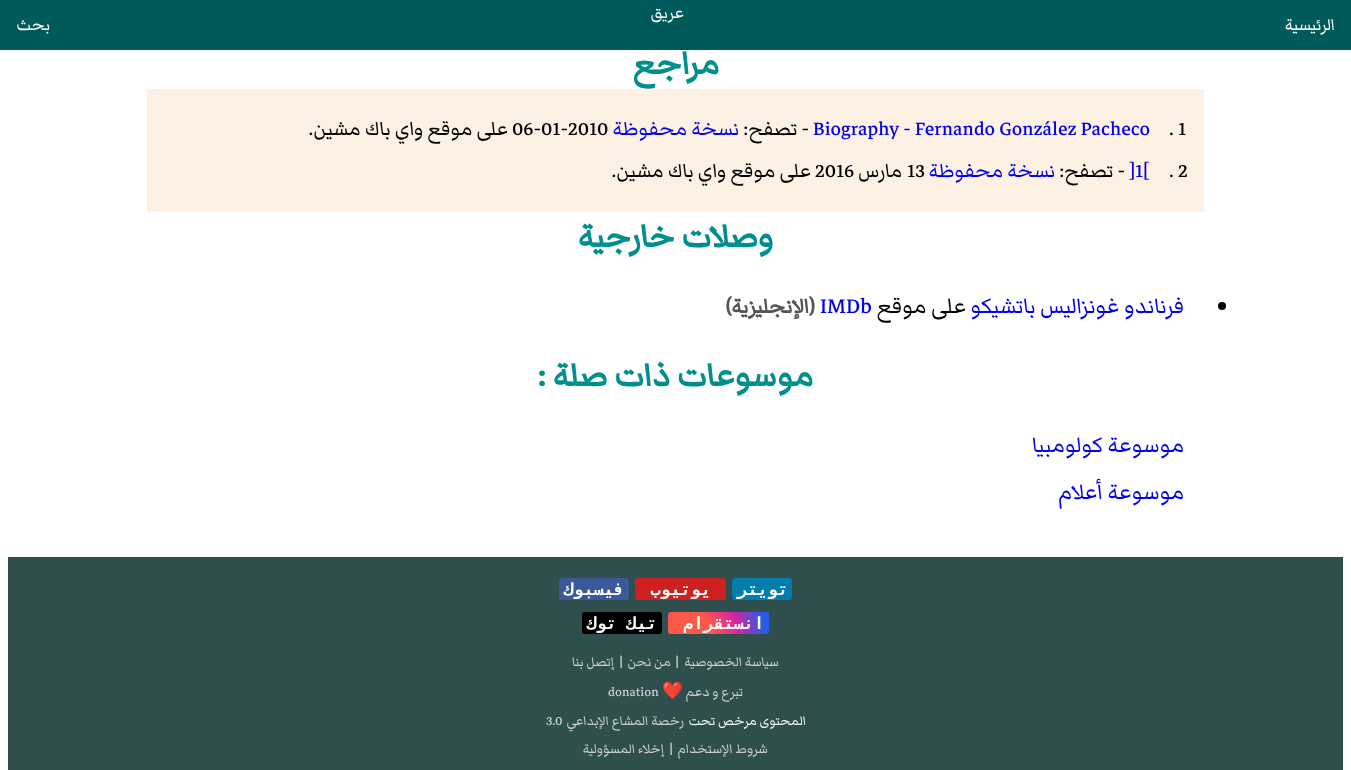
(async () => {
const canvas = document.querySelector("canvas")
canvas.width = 1351
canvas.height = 770
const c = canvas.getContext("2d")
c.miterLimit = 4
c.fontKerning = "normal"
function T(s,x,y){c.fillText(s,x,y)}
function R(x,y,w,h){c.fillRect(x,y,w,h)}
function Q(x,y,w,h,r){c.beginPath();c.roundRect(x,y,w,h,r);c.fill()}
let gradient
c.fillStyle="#fff"
R(0,0,1351,770)
c.fillStyle="#005a5a"
R(0,0,1351,50)
c.direction="rtl"
c.font="21px Markazi Text"
c.fillStyle="#fff"
T("عريق",684,18)
T("الرئيسية",1335,30)
T("بحث",50,30)
c.font="bold 42px Markazi Text"
c.fillStyle="#008e8e"
T("مراجع",719,74)
c.fillStyle="#fcf1e2"
R(147,89,1057,123)
c.direction="ltr"
c.font="25.25px Markazi Text"
c.fillStyle="#000"
T(". 1",1169,135)
c.fillStyle="#00e"
T("Biography - Fernando González Pacheco",813,135)
c.direction="rtl"
c.fillStyle="#000"
T("- تصفح:",809,135)
c.fillStyle="#00e"
T("نسخة محفوظة",739,135)
c.direction="ltr"
c.fillStyle="#000"
T("06-01-2010",512,135)
c.direction="rtl"
T("على موقع واي باك مشين.",508,135)
c.direction="ltr"
T(". 2",1169,177)
c.fillStyle="#00e"
T("]1[",1129,177)
c.direction="rtl"
c.fillStyle="#000"
T("- تصفح:",1125,177)
c.fillStyle="#00e"
T("نسخة محفوظة",1055,177)
c.direction="ltr"
c.fillStyle="#000"
T("13",907,177)
c.direction="rtl"
T("مارس",902,177)
c.direction="ltr"
T("2016",815,177)
c.direction="rtl"
T("على موقع واي باك مشين.",811,177)
c.font="bold 42px Markazi Text"
c.fillStyle="#008e8e"
T("وصلات خارجية",773,247)
c.fillStyle="#000"
c.beginPath()
c.arc(1222,306,4,0,7)
c.fill()
c.font="28px Markazi Text"
c.fillStyle="#00e"
T("فرناندو غونزاليس باتشيكو",1184,313)
c.fillStyle="#000"
T("على موقع",966,313)
c.direction="ltr"
c.fillStyle="#00e"
T("IMDb",820,313)
c.direction="rtl"
c.font="bold 26.5px Markazi Text"
c.fillStyle="#555"
T("(الإنجليزية)",815,313)
c.font="bold 42px Markazi Text"
c.fillStyle="#008e8e"
T("موسوعات ذات صلة :",813,386)
c.font="28px Markazi Text"
c.fillStyle="#00e"
T("موسوعة كولومبيا",1184,452)
T("موسوعة أعلام",1184,499)
c.fillStyle="#2f4f4f"
R(8,557,1335,213)
c.fillStyle="#037dad"
Q(732,578,60,22,3)
c.font="bold 16.75px DejaVu Sans Mono"
c.fillStyle="#fff"
T("تويتر",788,595)
c.fillStyle="#cd201f"
Q(635,578,91,22,3)
c.fillStyle="#fff"
T("يوتيوب",711,595)
c.fillStyle="#3b5999"
Q(559,578,70,22,3)
c.fillStyle="#fff"
T("فيسبوك",624,595)
gradient = c.createRadialGradient(688,638,0,688,638,85)
gradient.addColorStop(.3,"#fd5949")
gradient.addColorStop(.6,"#d6249f")
gradient.addColorStop(.9,"#285aeb")
c.fillStyle = gradient
Q(668,612,101,22,3)
c.fillStyle="#fff"
T("انستقرام",764,629)
c.fillStyle="#000"
Q(582,612,80,22,3)
c.fillStyle="#fff"
T("تيك توك",657,629)
c.font="16.75px Markazi Text"
c.fillStyle="#ccc"
T("سياسة الخصوصية",779,666)
c.direction="ltr"
c.fillStyle="#f5f5f5"
T("|",675,666)
c.direction="rtl"
c.fillStyle="#ccc"
T("من نحن",671,666)
c.direction="ltr"
c.fillStyle="#f5f5f5"
T("|",619,666)
c.direction="rtl"
c.fillStyle="#ccc"
T("إتصل بنا",614,666)
T("تبرع و دعم",743,696)
c.font="16.75px Noto Color Emoji"
T("❤️",683,696)
c.direction="ltr"
c.font="16.75px Markazi Text"
T("donation",608,696)
c.direction="rtl"
c.fillStyle="#f5f5f5"
T("المحتوى مرخص تحت",806,725)
c.fillStyle="#ccc"
T("رخصة المشاع الإبداعي",684,725)
c.direction="ltr"
T("3.0",546,725)
c.direction="rtl"
T("شروط الإستخدام",768,753)
c.direction="ltr"
c.fillStyle="#f5f5f5"
T("|",669,753)
c.direction="rtl"
c.fillStyle="#ccc"
T("إخلاء المسؤولية",664,753)
})()
